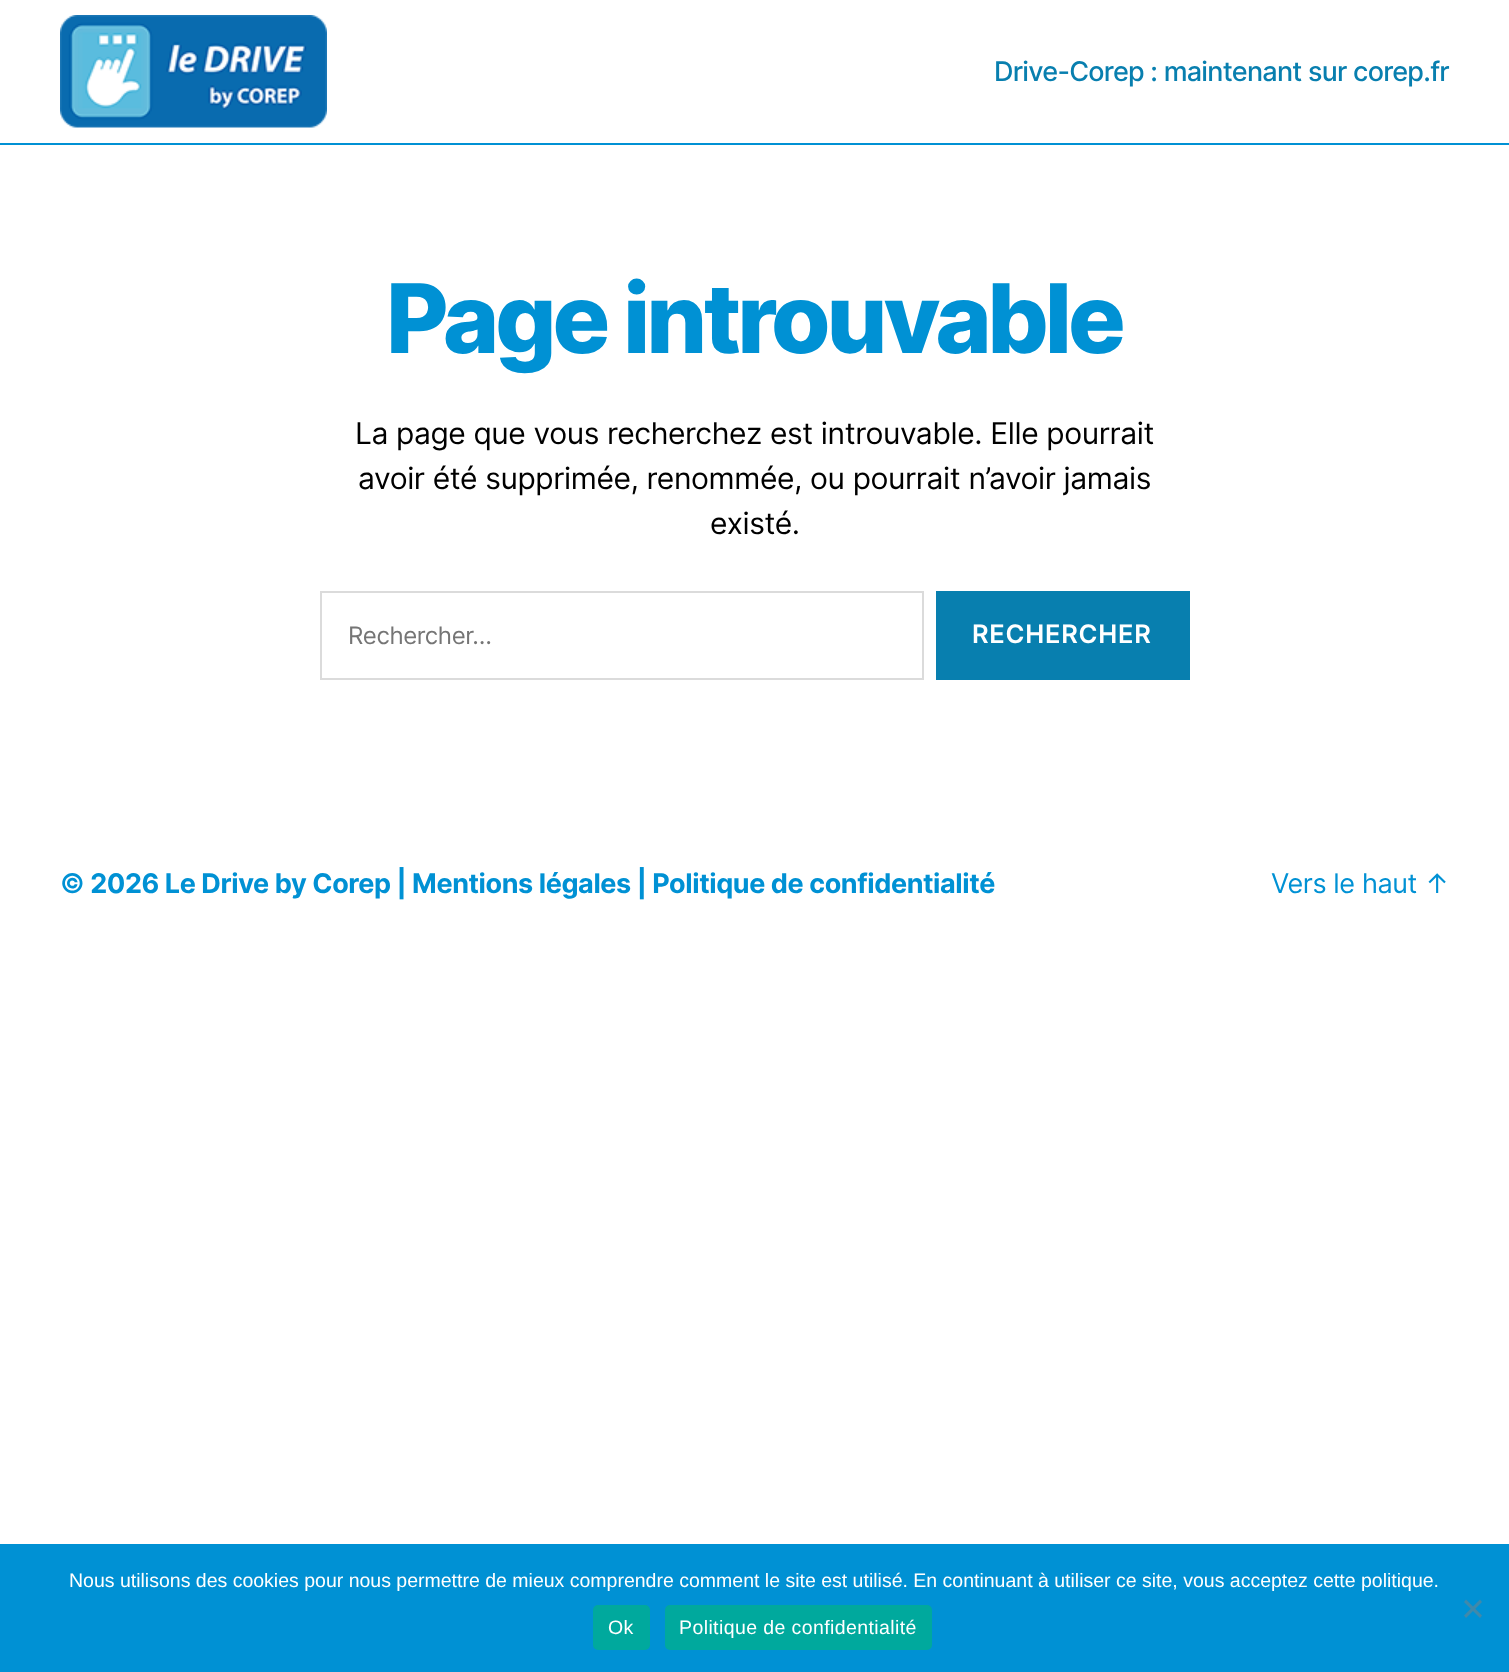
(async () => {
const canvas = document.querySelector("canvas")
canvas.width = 1509
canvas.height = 1672
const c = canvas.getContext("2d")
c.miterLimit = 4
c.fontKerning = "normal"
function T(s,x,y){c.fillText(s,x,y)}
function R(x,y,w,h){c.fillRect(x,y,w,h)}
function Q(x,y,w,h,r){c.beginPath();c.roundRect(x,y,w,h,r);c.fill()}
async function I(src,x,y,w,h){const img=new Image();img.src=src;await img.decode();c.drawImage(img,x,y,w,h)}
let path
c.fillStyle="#fff"
R(0,0,1509,1672)
c.fillStyle="#0091d4"
R(0,143,1509,2)
await I("1.png",60,15,267,113)
c.letterSpacing="-0.75px"
c.font="500 27px Inter"
c.fillStyle="#087faf"
T("Drive-Corep : maintenant sur corep.fr",994,81)
c.letterSpacing="-4px"
c.font="800 96px Inter"
c.fillStyle="#0091d4"
T("Page introuvable",386,353)
c.letterSpacing="-0.4px"
c.font="30px Inter"
c.fillStyle="#000"
T("La page que vous recherchez est introuvable. Elle pourrait",355,444)
T("avoir été supprimée, renommée, ou pourrait n’avoir jamais",358,489)
T("existé.",710,534)
c.strokeStyle="#dbdbdb"
c.lineWidth=2
c.strokeRect(321,592,602,87)
c.font="24px Inter"
c.fillStyle="#757575"
T("Rechercher…",348,644)
c.fillStyle="#087faf"
R(936,591,254,89)
c.letterSpacing="0.75px"
c.font="600 25.5px Inter"
c.fillStyle="#fff"
T("RECHERCHER",972,643)
c.letterSpacing="-0.4px"
c.font="bold 27px Inter"
c.fillStyle="#0091d4"
T("© 2026 Le Drive by Corep | Mentions légales | Politique de confidentialité",60,893)
c.font="27px Inter"
T("Vers le haut ↑",1271,893)
R(0,1544,1509,128)
c.letterSpacing="0px"
c.font="19.5px Liberation Sans"
c.fillStyle="#fff"
T("Nous utilisons des cookies pour nous permettre de mieux comprendre comment le site est utilisé. En continuant à utiliser ce site, vous acceptez cette politique.",69,1587)
c.fillStyle="#4089aa"
path = new Path2D("M1480 1599.5l2 2.5l-16 16l-2-2.5z")
c.fill(path)
path = new Path2D("M1464 1602l2-2.5l16 16l-2 2.5z")
c.fill(path)
c.fillStyle="#00a99d"
Q(593,1605,57,45,5)
c.letterSpacing="0.4px"
c.fillStyle="#fff"
T("Ok",608,1634)
c.fillStyle="#00a99d"
Q(665,1605,267,45,5)
c.fillStyle="#fff"
T("Politique de confidentialité",679,1634)
})()
